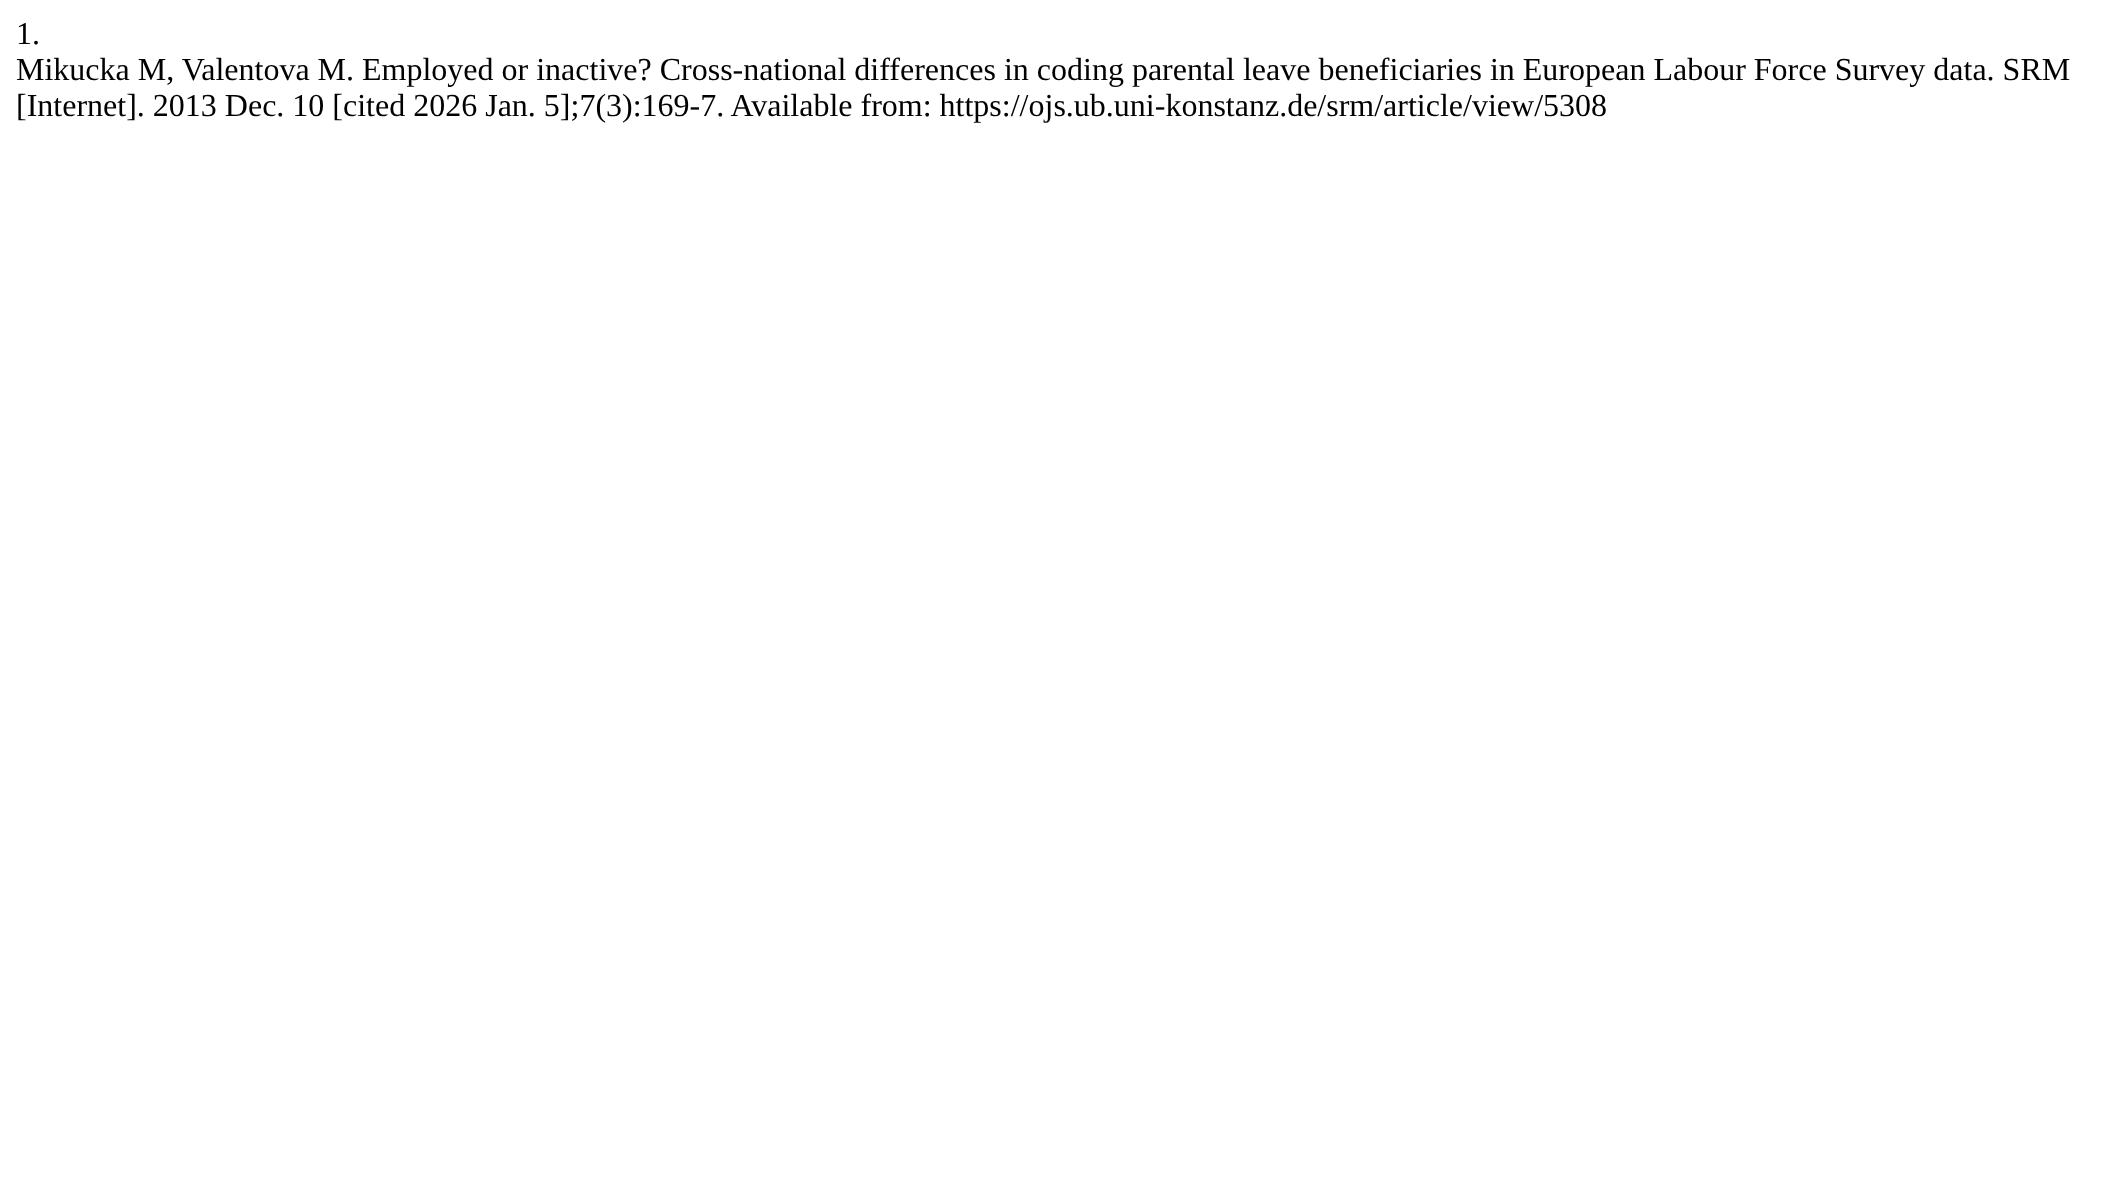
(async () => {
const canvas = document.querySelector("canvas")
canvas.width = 2122
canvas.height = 1203
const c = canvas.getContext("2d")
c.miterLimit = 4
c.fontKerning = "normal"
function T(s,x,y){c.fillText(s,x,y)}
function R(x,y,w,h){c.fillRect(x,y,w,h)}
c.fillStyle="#fff"
R(0,0,2122,1203)
c.font="32px Liberation Serif"
c.fillStyle="#000"
T("1.",16,44)
T("Mikucka M, Valentova M. Employed or inactive? Cross-national differences in coding parental leave beneficiaries in European Labour Force Survey data. SRM",16,80)
T("[Internet]. 2013 Dec. 10 [cited 2026 Jan. 5];7(3):169-7. Available from: https://ojs.ub.uni-konstanz.de/srm/article/view/5308",16,116)
})()
